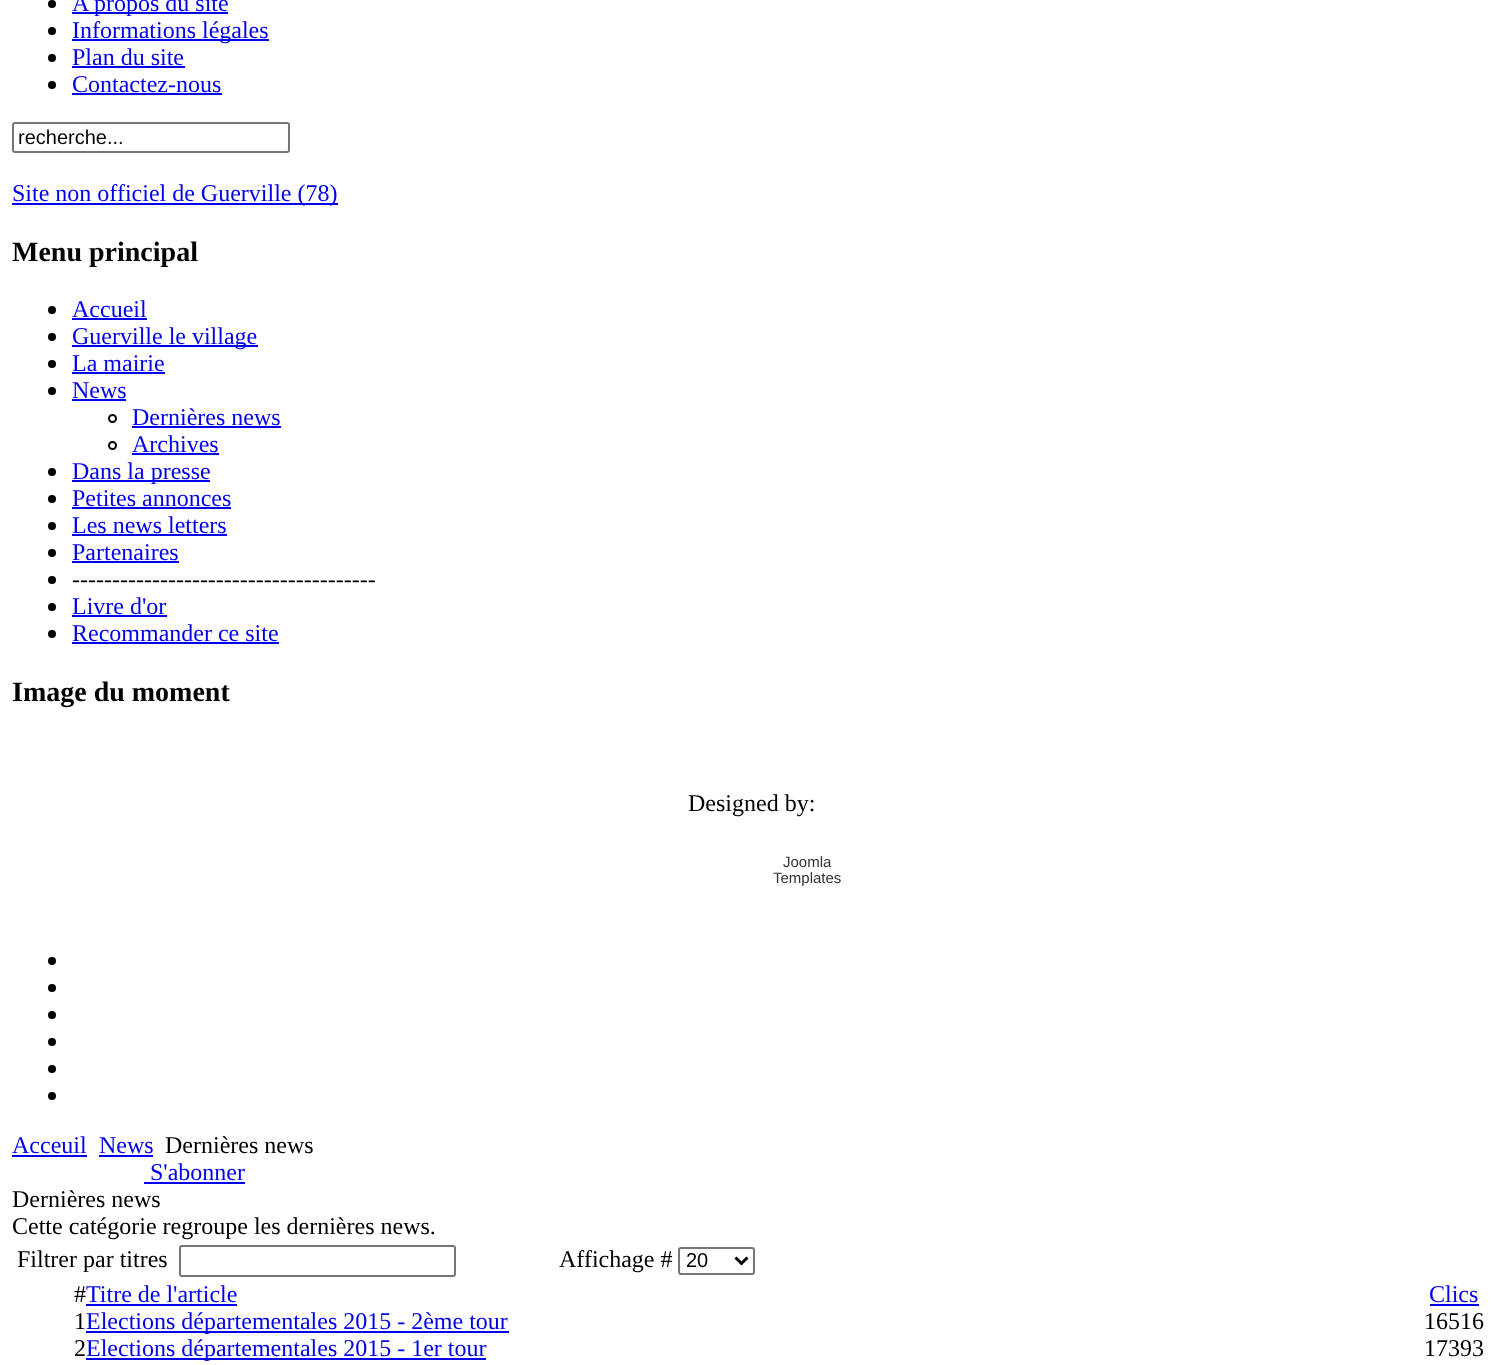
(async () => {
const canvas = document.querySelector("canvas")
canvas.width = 1502
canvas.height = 1365
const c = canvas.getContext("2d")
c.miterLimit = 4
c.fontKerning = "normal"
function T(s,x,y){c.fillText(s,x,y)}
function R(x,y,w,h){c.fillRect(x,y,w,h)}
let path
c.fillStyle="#fff"
R(0,0,1502,1365)
c.fillStyle="#000"
c.beginPath()
c.arc(52,4,4,0,7)
c.fill()
c.fillStyle="#00e"
R(72,12,156,2)
c.font="24px Liberation Serif"
T("A propos du site",72,11)
c.fillStyle="#000"
c.beginPath()
c.arc(52,31,4,0,7)
c.fill()
c.fillStyle="#00e"
R(72,39,197,2)
T("Informations légales",72,38)
c.fillStyle="#000"
c.beginPath()
c.arc(52,58,4,0,7)
c.fill()
c.fillStyle="#00e"
T("Plan du site",72,65)
R(72,66,113,2)
c.fillStyle="#000"
c.beginPath()
c.arc(52,85,4,0,7)
c.fill()
c.fillStyle="#00e"
T("Contactez-nous",72,92)
R(72,93,150,2)
c.beginPath()
c.roundRect(13,123,276,29,2)
c.strokeStyle="#767676"
c.lineWidth=2
c.stroke()
c.font="20px Liberation Sans"
c.fillStyle="#000"
T("recherche...",18,144)
c.fillStyle="#00e"
R(12,203,326,2)
c.font="24px Liberation Serif"
T("Site non officiel de Guerville (78)",12,201)
c.font="bold 28px Liberation Serif"
c.fillStyle="#000"
T("Menu principal",12,261)
c.beginPath()
c.arc(52,310,4,0,7)
c.fill()
c.font="24px Liberation Serif"
c.fillStyle="#00e"
T("Accueil",72,317)
R(72,318,75,2)
c.fillStyle="#000"
c.beginPath()
c.arc(52,337,4,0,7)
c.fill()
c.fillStyle="#00e"
R(72,345,186,2)
T("Guerville le village",72,344)
c.fillStyle="#000"
c.beginPath()
c.arc(52,364,4,0,7)
c.fill()
c.fillStyle="#00e"
T("La mairie",72,371)
R(72,372,93,2)
c.fillStyle="#000"
c.beginPath()
c.arc(52,391,4,0,7)
c.fill()
c.fillStyle="#00e"
T("News",72,398)
R(72,399,54,2)
c.beginPath()
c.arc(112.5,418.5,3.5,0,7)
c.strokeStyle="#000"
c.stroke()
T("Dernières news",132,425)
R(132,426,149,2)
c.beginPath()
c.arc(112.5,445.5,3.5,0,7)
c.stroke()
T("Archives",132,452)
R(132,453,87,2)
c.fillStyle="#000"
c.beginPath()
c.arc(52,472,4,0,7)
c.fill()
c.fillStyle="#00e"
R(72,480,138,2)
T("Dans la presse",72,479)
c.fillStyle="#000"
c.beginPath()
c.arc(52,499,4,0,7)
c.fill()
c.fillStyle="#00e"
T("Petites annonces",72,506)
R(72,507,159,2)
c.fillStyle="#000"
c.beginPath()
c.arc(52,526,4,0,7)
c.fill()
c.fillStyle="#00e"
T("Les news letters",72,533)
R(72,534,155,2)
c.fillStyle="#000"
c.beginPath()
c.arc(52,553,4,0,7)
c.fill()
c.fillStyle="#00e"
T("Partenaires",72,560)
R(72,561,107,2)
c.fillStyle="#000"
c.beginPath()
c.arc(52,580,4,0,7)
c.fill()
T("--------------------------------------",72,587)
c.beginPath()
c.arc(52,607,4,0,7)
c.fill()
c.fillStyle="#00e"
T("Livre d'or",72,614)
R(72,615,95,2)
c.fillStyle="#000"
c.beginPath()
c.arc(52,634,4,0,7)
c.fill()
c.fillStyle="#00e"
T("Recommander ce site",72,641)
R(72,642,207,2)
c.font="bold 28px Liberation Serif"
c.fillStyle="#000"
T("Image du moment",12,701)
c.font="24px Liberation Serif"
T("Designed by:",688,811)
c.font="15px Liberation Sans"
c.fillStyle="#333"
T("Joomla",783,867)
T("Templates",773,883)
c.fillStyle="#000"
c.beginPath()
c.arc(52,961,4,0,7)
c.fill()
c.beginPath()
c.arc(52,988,4,0,7)
c.fill()
c.beginPath()
c.arc(52,1015,4,0,7)
c.fill()
c.beginPath()
c.arc(52,1042,4,0,7)
c.fill()
c.beginPath()
c.arc(52,1069,4,0,7)
c.fill()
c.beginPath()
c.arc(52,1096,4,0,7)
c.fill()
c.font="24px Liberation Serif"
c.fillStyle="#00e"
T("Acceuil",12,1153)
R(12,1155,75,2)
T("News",99,1153)
R(99,1155,54,2)
c.fillStyle="#000"
T("Dernières news",165,1153)
c.fillStyle="#00e"
T("S'abonner",150,1180)
R(144,1182,101,2)
c.fillStyle="#000"
T("Dernières news",12,1207)
T("Cette catégorie regroupe les dernières news.",12,1234)
T("Filtrer par titres",17,1267)
c.beginPath()
c.roundRect(180,1246,275,30,2)
c.strokeStyle="#767676"
c.stroke()
T("Affichage #",559,1267)
c.beginPath()
c.roundRect(679,1248,75,26,2)
c.stroke()
path = new Path2D("M735.5 1257.5l6 6l6-6")
c.strokeStyle="#000"
c.lineWidth=3
c.stroke(path)
c.font="20px Liberation Sans"
T("20",686,1267)
c.font="24px Liberation Serif"
T("#",74,1302)
c.fillStyle="#00e"
T("Titre de l'article",86,1302)
R(86,1304,151,2)
T("Clics",1429,1302)
R(1430,1304,49,2)
c.fillStyle="#000"
T("1",74,1329)
c.fillStyle="#00e"
R(86,1331,423,2)
T("Elections départementales 2015 - 2ème tour",86,1329)
c.fillStyle="#000"
T("16516",1424,1329)
T("2",74,1356)
c.fillStyle="#00e"
R(86,1358,400,2)
T("Elections départementales 2015 - 1er tour",86,1356)
c.fillStyle="#000"
T("17393",1424,1356)
})()
